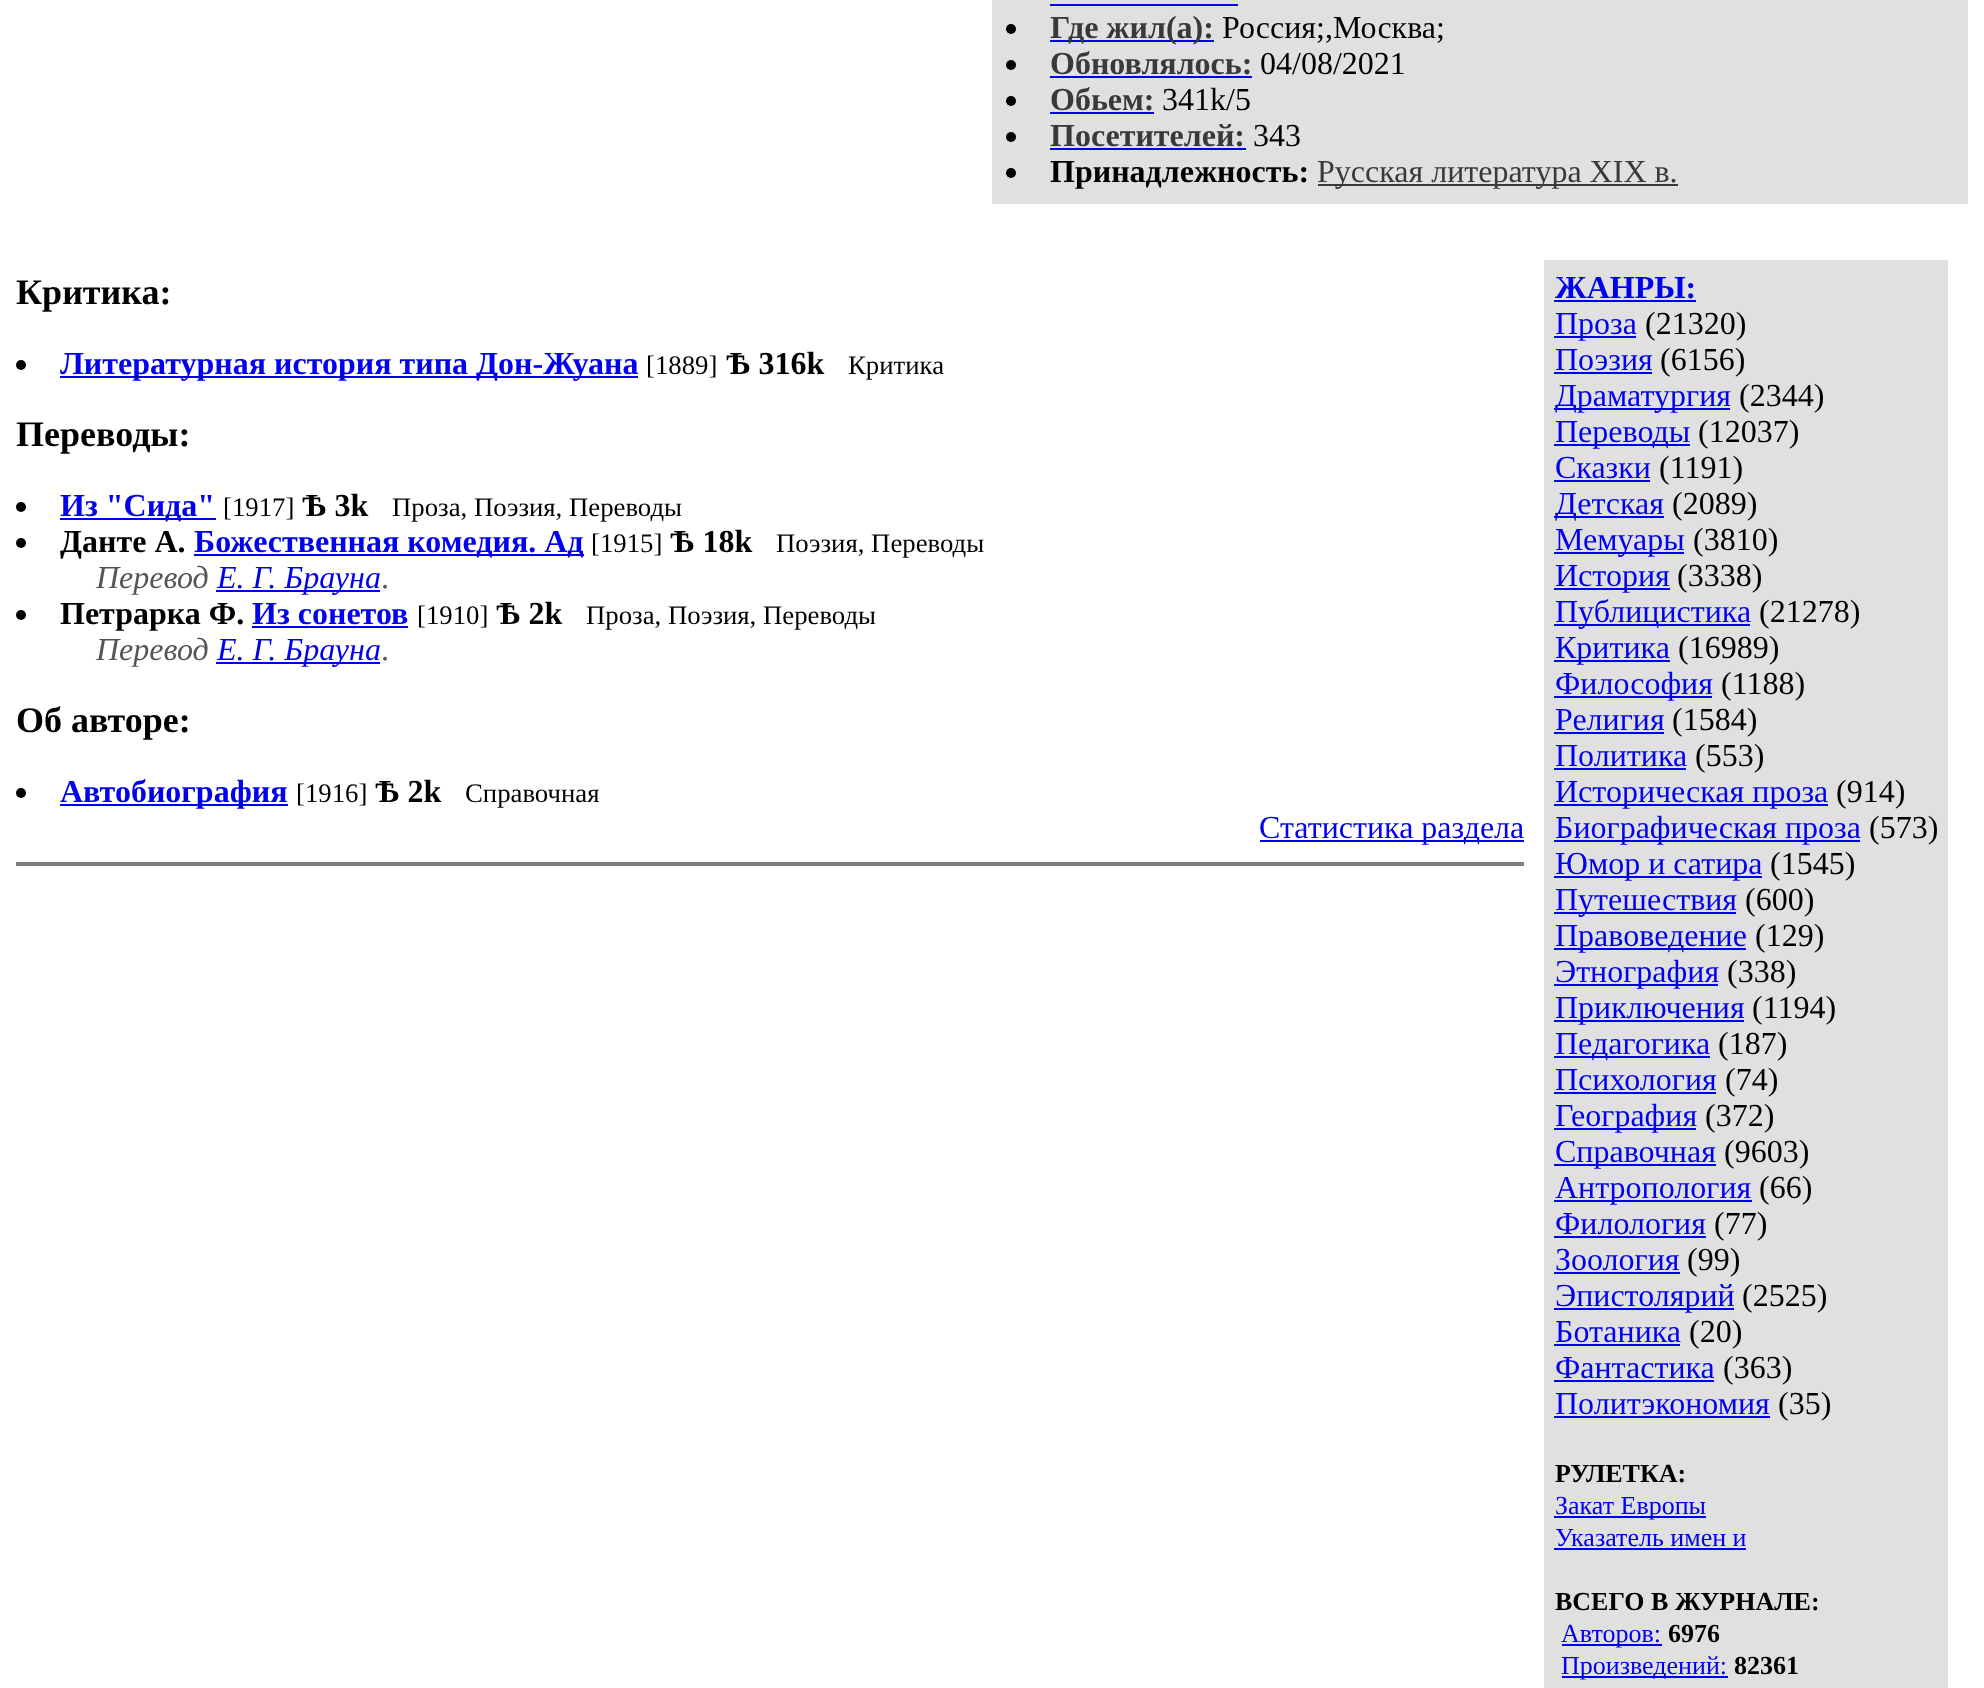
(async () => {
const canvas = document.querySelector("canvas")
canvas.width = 1984
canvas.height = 1688
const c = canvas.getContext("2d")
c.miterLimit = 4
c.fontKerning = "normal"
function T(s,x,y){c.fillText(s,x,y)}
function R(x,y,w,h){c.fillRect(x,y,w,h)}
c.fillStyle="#fff"
R(0,0,1984,1688)
c.fillStyle="#e0e0e0"
R(992,0,976,204)
c.fillStyle="#00e"
R(1050,4,188,2)
c.fillStyle="#000"
c.beginPath()
c.arc(1011,29,5,0,7)
c.fill()
c.fillStyle="#00e"
R(1050,40,164,2)
c.font="bold 32px Liberation Serif"
c.fillStyle="#393939"
T("Где жил(а):",1050,38)
c.font="32px Liberation Serif"
c.fillStyle="#000"
T("Россия;,Москва;",1222,38)
c.beginPath()
c.arc(1011,65,5,0,7)
c.fill()
c.font="bold 32px Liberation Serif"
c.fillStyle="#393939"
T("Обновлялось:",1050,74)
c.fillStyle="#00e"
R(1050,76,202,2)
c.font="32px Liberation Serif"
c.fillStyle="#000"
T("04/08/2021",1260,74)
c.beginPath()
c.arc(1011,101,5,0,7)
c.fill()
c.font="bold 32px Liberation Serif"
c.fillStyle="#393939"
T("Обьем:",1050,110)
c.fillStyle="#00e"
R(1050,112,104,2)
c.font="32px Liberation Serif"
c.fillStyle="#000"
T("341k/5",1162,110)
c.beginPath()
c.arc(1011,137,5,0,7)
c.fill()
c.font="bold 32px Liberation Serif"
c.fillStyle="#393939"
T("Посетителей:",1050,146)
c.fillStyle="#00e"
R(1050,148,196,2)
c.font="32px Liberation Serif"
c.fillStyle="#000"
T("343",1253,146)
c.beginPath()
c.arc(1011,173,5,0,7)
c.fill()
c.font="bold 32px Liberation Serif"
T("Принадлежность:",1050,182)
c.fillStyle="#393939"
R(1318,184,360,2)
c.font="32px Liberation Serif"
T("Русская литература XIX в.",1317,182)
c.font="bold 36px Liberation Serif"
c.fillStyle="#000"
T("Критика:",16,304)
c.beginPath()
c.arc(21,365,5,0,7)
c.fill()
c.fillStyle="#00e"
R(60,376,578,2)
c.font="bold 32px Liberation Serif"
T("Литературная история типа Дон-Жуана",60,374)
c.font="26.75px Liberation Serif"
c.fillStyle="#000"
T("[1889]",646,374)
c.font="bold 32px Liberation Serif"
T("Ѣ 316k",726,374)
c.font="26.75px Liberation Serif"
T("Критика",848,374)
c.font="bold 36px Liberation Serif"
T("Переводы:",16,446)
c.beginPath()
c.arc(21,507,5,0,7)
c.fill()
c.fillStyle="#00e"
R(60,518,156,2)
c.font="bold 32px Liberation Serif"
T("Из \"Сида\"",60,516)
c.font="26.75px Liberation Serif"
c.fillStyle="#000"
T("[1917]",223,516)
c.font="bold 32px Liberation Serif"
T("Ѣ 3k",302,516)
c.font="26.75px Liberation Serif"
T("Проза, Поэзия, Переводы",392,516)
c.beginPath()
c.arc(21,543,5,0,7)
c.fill()
c.font="bold 32px Liberation Serif"
T("Данте А.",60,552)
c.fillStyle="#00e"
R(194,554,390,2)
T("Божественная комедия. Ад",194,552)
c.font="26.75px Liberation Serif"
c.fillStyle="#000"
T("[1915]",591,552)
c.font="bold 32px Liberation Serif"
T("Ѣ 18k",670,552)
c.font="26.75px Liberation Serif"
T("Поэзия, Переводы",776,552)
c.font="italic 32px Liberation Serif"
c.fillStyle="#555"
T("Перевод",96,588)
c.fillStyle="#00e"
R(216,590,164,2)
T("Е. Г. Брауна",217,588)
c.font="32px Liberation Serif"
c.fillStyle="#555"
T(".",381,588)
c.fillStyle="#000"
c.beginPath()
c.arc(21,615,5,0,7)
c.fill()
c.font="bold 32px Liberation Serif"
T("Петрарка Ф.",60,624)
c.fillStyle="#00e"
T("Из сонетов",252,624)
R(252,626,156,2)
c.font="26.75px Liberation Serif"
c.fillStyle="#000"
T("[1910]",417,624)
c.font="bold 32px Liberation Serif"
T("Ѣ 2k",496,624)
c.font="26.75px Liberation Serif"
T("Проза, Поэзия, Переводы",586,624)
c.font="italic 32px Liberation Serif"
c.fillStyle="#555"
T("Перевод",96,660)
c.fillStyle="#00e"
R(216,662,164,2)
T("Е. Г. Брауна",217,660)
c.font="32px Liberation Serif"
c.fillStyle="#555"
T(".",381,660)
c.font="bold 36px Liberation Serif"
c.fillStyle="#000"
T("Об авторе:",16,732)
c.beginPath()
c.arc(21,793,5,0,7)
c.fill()
c.fillStyle="#00e"
R(60,804,228,2)
c.font="bold 32px Liberation Serif"
T("Автобиография",60,802)
c.font="26.75px Liberation Serif"
c.fillStyle="#000"
T("[1916]",296,802)
c.font="bold 32px Liberation Serif"
T("Ѣ 2k",375,802)
c.font="26.75px Liberation Serif"
T("Справочная",465,802)
c.fillStyle="#00e"
R(1260,840,264,2)
c.font="32px Liberation Serif"
T("Статистика раздела",1259,838)
c.fillStyle="#808080"
R(16,862,1508,4)
c.fillStyle="#e0e0e0"
R(1544,260,404,1428)
c.font="bold 32px Liberation Serif"
c.fillStyle="#00e"
T("ЖАНРЫ:",1555,298)
R(1554,300,142,2)
R(1554,336,82,2)
c.font="32px Liberation Serif"
T("Проза",1555,334)
c.fillStyle="#000"
T("(21320)",1645,334)
c.fillStyle="#00e"
T("Поэзия",1555,370)
R(1554,372,98,2)
c.fillStyle="#000"
T("(6156)",1660,370)
c.fillStyle="#00e"
R(1554,408,176,2)
T("Драматургия",1555,406)
c.fillStyle="#000"
T("(2344)",1739,406)
c.fillStyle="#00e"
R(1554,444,136,2)
T("Переводы",1555,442)
c.fillStyle="#000"
T("(12037)",1698,442)
c.fillStyle="#00e"
T("Сказки",1555,478)
R(1554,480,96,2)
c.fillStyle="#000"
T("(1191)",1659,478)
c.fillStyle="#00e"
R(1554,516,110,2)
T("Детская",1555,514)
c.fillStyle="#000"
T("(2089)",1672,514)
c.fillStyle="#00e"
R(1554,552,130,2)
T("Мемуары",1555,550)
c.fillStyle="#000"
T("(3810)",1693,550)
c.fillStyle="#00e"
R(1554,588,116,2)
T("История",1555,586)
c.fillStyle="#000"
T("(3338)",1677,586)
c.fillStyle="#00e"
R(1554,624,196,2)
T("Публицистика",1555,622)
c.fillStyle="#000"
T("(21278)",1759,622)
c.fillStyle="#00e"
R(1554,660,116,2)
T("Критика",1555,658)
c.fillStyle="#000"
T("(16989)",1678,658)
c.fillStyle="#00e"
R(1554,696,158,2)
T("Философия",1555,694)
c.fillStyle="#000"
T("(1188)",1721,694)
c.fillStyle="#00e"
T("Религия",1555,730)
R(1554,732,110,2)
c.fillStyle="#000"
T("(1584)",1672,730)
c.fillStyle="#00e"
T("Политика",1555,766)
R(1554,768,132,2)
c.fillStyle="#000"
T("(553)",1695,766)
c.fillStyle="#00e"
R(1554,804,274,2)
T("Историческая проза",1555,802)
c.fillStyle="#000"
T("(914)",1836,802)
c.fillStyle="#00e"
R(1554,840,306,2)
T("Биографическая проза",1555,838)
c.fillStyle="#000"
T("(573)",1869,838)
c.fillStyle="#00e"
R(1554,876,208,2)
T("Юмор и сатира",1555,874)
c.fillStyle="#000"
T("(1545)",1770,874)
c.fillStyle="#00e"
R(1554,912,182,2)
T("Путешествия",1555,910)
c.fillStyle="#000"
T("(600)",1745,910)
c.fillStyle="#00e"
R(1554,948,192,2)
T("Правоведение",1555,946)
c.fillStyle="#000"
T("(129)",1755,946)
c.fillStyle="#00e"
R(1554,984,164,2)
T("Этнография",1555,982)
c.fillStyle="#000"
T("(338)",1727,982)
c.fillStyle="#00e"
R(1554,1020,190,2)
T("Приключения",1555,1018)
c.fillStyle="#000"
T("(1194)",1752,1018)
c.fillStyle="#00e"
R(1554,1056,156,2)
T("Педагогика",1555,1054)
c.fillStyle="#000"
T("(187)",1718,1054)
c.fillStyle="#00e"
T("Психология",1555,1090)
R(1554,1092,162,2)
c.fillStyle="#000"
T("(74)",1725,1090)
c.fillStyle="#00e"
R(1554,1128,142,2)
T("География",1555,1126)
c.fillStyle="#000"
T("(372)",1705,1126)
c.fillStyle="#00e"
R(1554,1164,162,2)
T("Справочная",1555,1162)
c.fillStyle="#000"
T("(9603)",1724,1162)
c.fillStyle="#00e"
R(1554,1200,198,2)
T("Антропология",1555,1198)
c.fillStyle="#000"
T("(66)",1759,1198)
c.fillStyle="#00e"
T("Филология",1555,1234)
R(1554,1236,152,2)
c.fillStyle="#000"
T("(77)",1714,1234)
c.fillStyle="#00e"
T("Зоология",1555,1270)
R(1554,1272,126,2)
c.fillStyle="#000"
T("(99)",1687,1270)
c.fillStyle="#00e"
R(1554,1308,180,2)
T("Эпистолярий",1555,1306)
c.fillStyle="#000"
T("(2525)",1742,1306)
c.fillStyle="#00e"
T("Ботаника",1555,1342)
R(1554,1344,126,2)
c.fillStyle="#000"
T("(20)",1689,1342)
c.fillStyle="#00e"
T("Фантастика",1555,1378)
R(1554,1380,160,2)
c.fillStyle="#000"
T("(363)",1723,1378)
c.fillStyle="#00e"
T("Политэкономия",1555,1414)
R(1554,1416,216,2)
c.fillStyle="#000"
T("(35)",1778,1414)
c.font="bold 26px Liberation Serif"
T("РУЛЕТКА:",1555,1482)
c.fillStyle="#00e"
R(1554,1516,152,2)
c.font="26px Liberation Serif"
T("Закат Европы",1555,1514)
T("Указатель имен и",1555,1546)
R(1554,1548,192,2)
c.font="bold 26px Liberation Serif"
c.fillStyle="#000"
T("ВСЕГО В ЖУРНАЛЕ:",1555,1610)
c.fillStyle="#00e"
R(1562,1644,100,2)
c.font="26px Liberation Serif"
T("Авторов:",1561,1642)
c.font="bold 26px Liberation Serif"
c.fillStyle="#000"
T("6976",1668,1642)
c.fillStyle="#00e"
R(1562,1676,166,2)
c.font="26px Liberation Serif"
T("Произведений:",1561,1674)
c.font="bold 26px Liberation Serif"
c.fillStyle="#000"
T("82361",1734,1674)
})()
